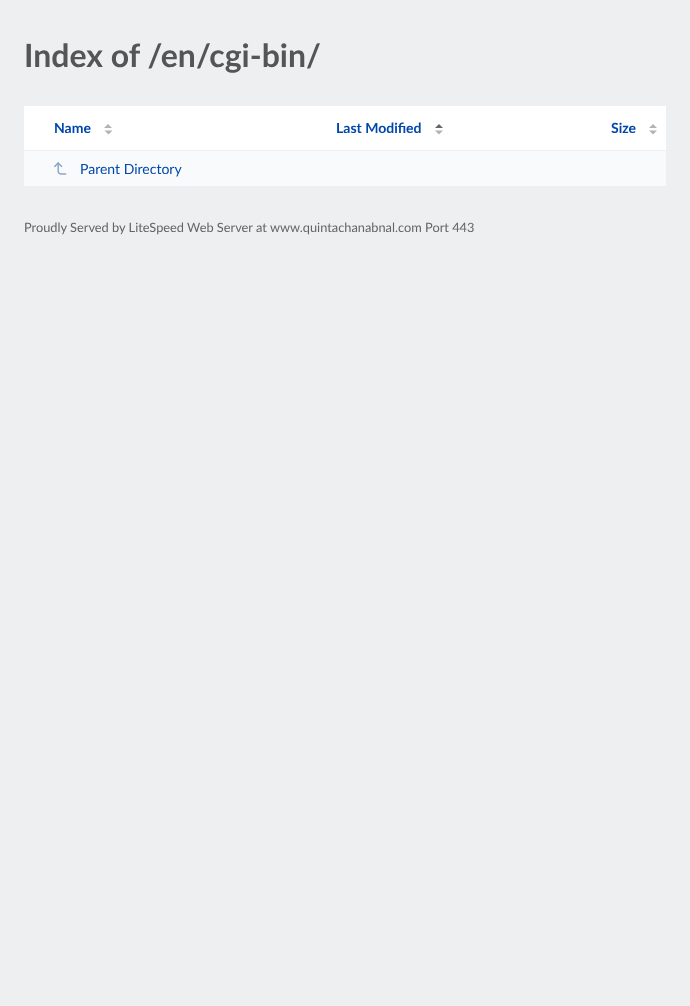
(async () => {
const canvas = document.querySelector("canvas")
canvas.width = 690
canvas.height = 1006
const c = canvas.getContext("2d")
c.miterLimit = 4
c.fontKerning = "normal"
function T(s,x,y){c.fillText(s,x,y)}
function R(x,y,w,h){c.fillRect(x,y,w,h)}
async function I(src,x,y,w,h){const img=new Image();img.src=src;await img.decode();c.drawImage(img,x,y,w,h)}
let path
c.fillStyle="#edeff0"
R(0,0,690,1006)
c.font="bold 32px Lato"
c.fillStyle="#555"
T("Index of /en/cgi-bin/",24,67)
c.fillStyle="#fff"
R(24,106,642,44)
c.font="bold 14px Lato"
c.fillStyle="#0047ab"
T("Name",54,133)
c.fillStyle="#b3b3b3"
path = new Path2D("M112 128h-8l4-4zm-7.5 2.5h8l-4 4z")
c.fill(path)
c.fillStyle="#0047ab"
T("Last Modified",336,133)
c.fillStyle="#666"
path = new Path2D("M443 128h-8l4-4z")
c.fill(path)
c.fillStyle="#b3b3b3"
path = new Path2D("M435 130.5h8l-4 4z")
c.fill(path)
c.fillStyle="#0047ab"
T("Size",611,133)
c.fillStyle="#b3b3b3"
path = new Path2D("M657 128h-8l4-4zm-8 2.5h8l-4 4z")
c.fill(path)
c.fillStyle="#f8fafb"
R(24,151,642,35)
await I("1.png",54,162,13,13)
c.font="14px Lato"
c.fillStyle="#0047ab"
T("Parent Directory",80,174)
c.font="12.8px Lato"
c.fillStyle="#646464"
T("Proudly Served by LiteSpeed Web Server at www.quintachanabnal.com Port 443",24,232)
})()
